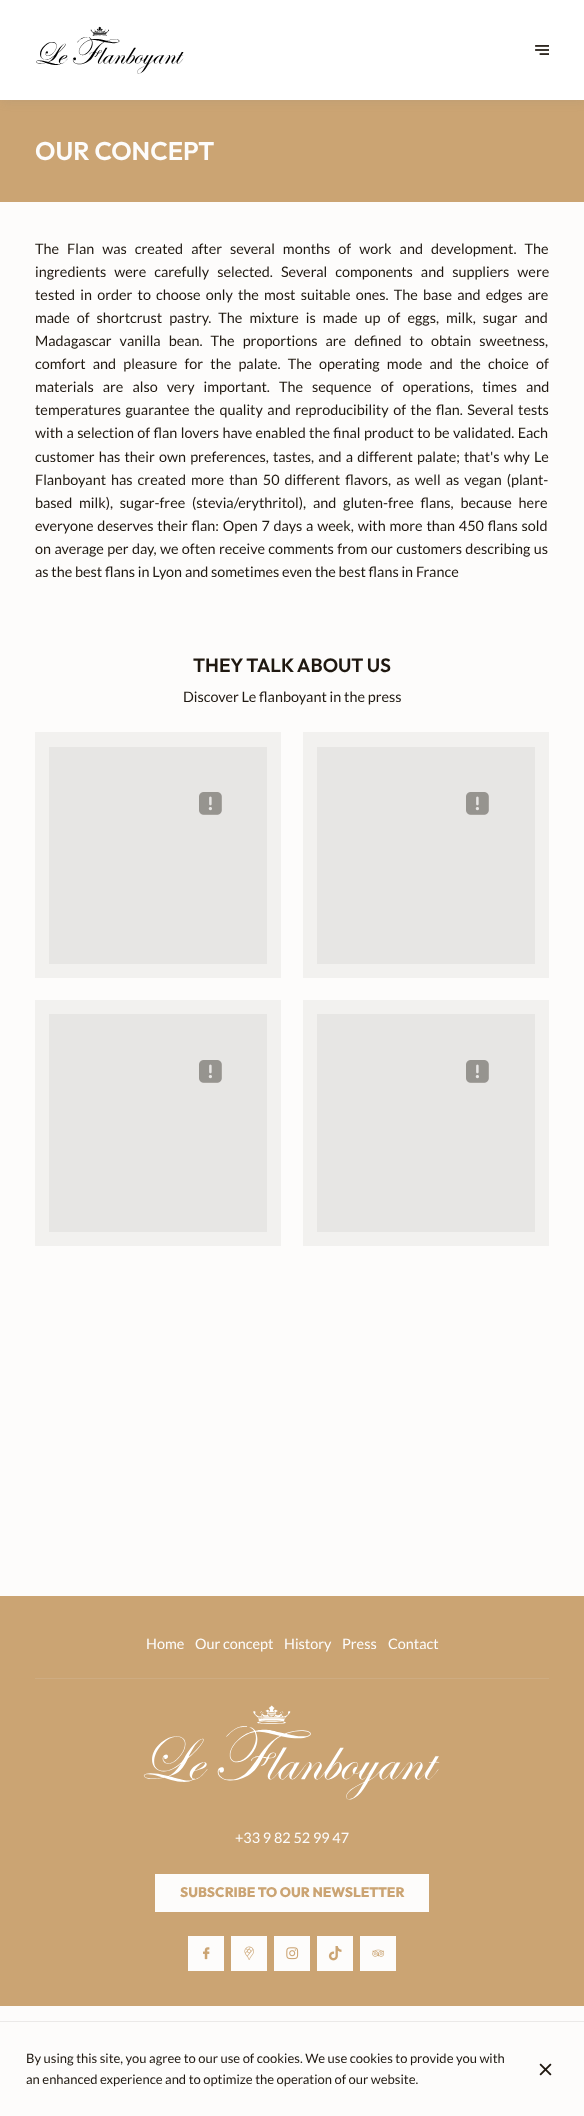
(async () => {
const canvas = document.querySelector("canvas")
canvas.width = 584
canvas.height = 2116
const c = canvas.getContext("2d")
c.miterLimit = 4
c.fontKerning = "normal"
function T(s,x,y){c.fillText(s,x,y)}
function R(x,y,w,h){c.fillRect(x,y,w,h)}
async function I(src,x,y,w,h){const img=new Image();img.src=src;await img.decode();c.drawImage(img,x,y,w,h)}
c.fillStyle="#fdfcfb"
R(0,0,584,2116)
c.fillStyle="#cba473"
R(0,100,584,102)
c.fillStyle="#7f7f7f26"
c.filter="blur(5px)"
c.beginPath()
c.rect(2,2,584,100)
c.fill()
c.filter="none"
c.fillStyle="#fff"
R(0,0,584,100)
await I("1.png",36,26,148,48)
await I("2.png",535,45,14,10)
c.font="600 25.5px Outfit"
c.fillStyle="#fdfcfb"
T("OUR CONCEPT",35,160)
c.wordSpacing="5.25px"
c.font="14.4px Lato"
c.fillStyle="#1f1810"
T("The Flan was created after several months of work and development. The",35,254)
T("ingredients were carefully selected. Several components and suppliers were",35,277)
c.wordSpacing="2.4px"
T("tested in order to choose only the most suitable ones. The base and edges are",35,300)
c.wordSpacing="4.25px"
T("made of shortcrust pastry. The mixture is made up of eggs, milk, sugar and",35,323)
c.wordSpacing="5.25px"
T("Madagascar vanilla bean. The proportions are defined to obtain sweetness,",35,346)
c.wordSpacing="4.4px"
T("comfort and pleasure for the palate. The operating mode and the choice of",35,369)
c.wordSpacing="6.25px"
T("materials are also very important. The sequence of operations, times and",35,392)
c.wordSpacing="1.75px"
T("temperatures guarantee the quality and reproducibility of the flan. Several tests",35,415)
c.wordSpacing="0.6px"
T("with a selection of flan lovers have enabled the final product to be validated. Each",35,438)
c.wordSpacing="1.4px"
T("customer has their own preferences, tastes, and a different palate; that's why Le",35,462)
c.wordSpacing="2.25px"
T("Flanboyant has created more than 50 different flavors, as well as vegan (plant-",35,485)
c.wordSpacing="4px"
T("based milk), sugar-free (stevia/erythritol), and gluten-free flans, because here",35,508)
c.wordSpacing="1px"
T("everyone deserves their flan: Open 7 days a week, with more than 450 flans sold",35,531)
c.wordSpacing="0.6px"
T("on average per day, we often receive comments from our customers describing us",35,554)
c.wordSpacing="0px"
T("as the best flans in Lyon and sometimes even the best flans in France",35,577)
c.font="600 19.25px Outfit"
T("THEY TALK ABOUT US",193,672)
c.font="14.4px Lato"
T("Discover Le flanboyant in the press",183,702)
c.fillStyle="#f2f1ef"
R(35,732,246,246)
c.fillStyle="#e7e6e4"
R(49,747,218,217)
await I("3.png",199,792,23,23)
c.fillStyle="#f2f1ef"
R(303,732,246,246)
c.fillStyle="#e7e6e4"
R(317,747,218,217)
await I("3.png",466,792,23,23)
c.fillStyle="#f2f1ef"
R(35,1000,246,246)
c.fillStyle="#e7e6e4"
R(49,1014,218,218)
await I("3.png",199,1060,23,23)
c.fillStyle="#f2f1ef"
R(303,1000,246,246)
c.fillStyle="#e7e6e4"
R(317,1014,218,218)
await I("3.png",466,1060,23,23)
c.fillStyle="#cba473"
R(0,1596,584,410)
c.fillStyle="#fdfcfb"
T("Home",146,1649)
T("Our concept",195,1649)
T("History",284,1649)
T("Press",342,1649)
T("Contact",388,1649)
c.fillStyle="#ceac82"
R(35,1678,514,1)
await I("4.png",143,1705,297,95)
c.fillStyle="#fdfcfb"
T("+33 9 82 52 99 47",235,1843)
R(155,1874,274,38)
c.font="800 13.75px Outfit"
c.fillStyle="#cba473"
T("SUBSCRIBE TO OUR NEWSLETTER",180,1897)
c.fillStyle="#fdfcfb"
R(188,1936,36,35)
await I("5.png",203,1947,7,13)
R(231,1936,36,35)
await I("6.png",244,1946,10,14)
R(274,1936,36,35)
await I("7.png",286,1947,13,13)
R(317,1936,36,35)
await I("8.png",328,1946,14,15)
R(360,1936,36,35)
await I("9.png",372,1949,13,8)
c.strokeStyle="#ebe9e8"
c.strokeRect(-.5,2021.5,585,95)
c.font="13px Lato"
c.fillStyle="#1f1810"
T("By using this site, you agree to our use of cookies. We use cookies to provide you with",26,2063)
T("an enhanced experience and to optimize the operation of our website.",26,2084)
await I("10.png",539,2063,13,13)
})()
